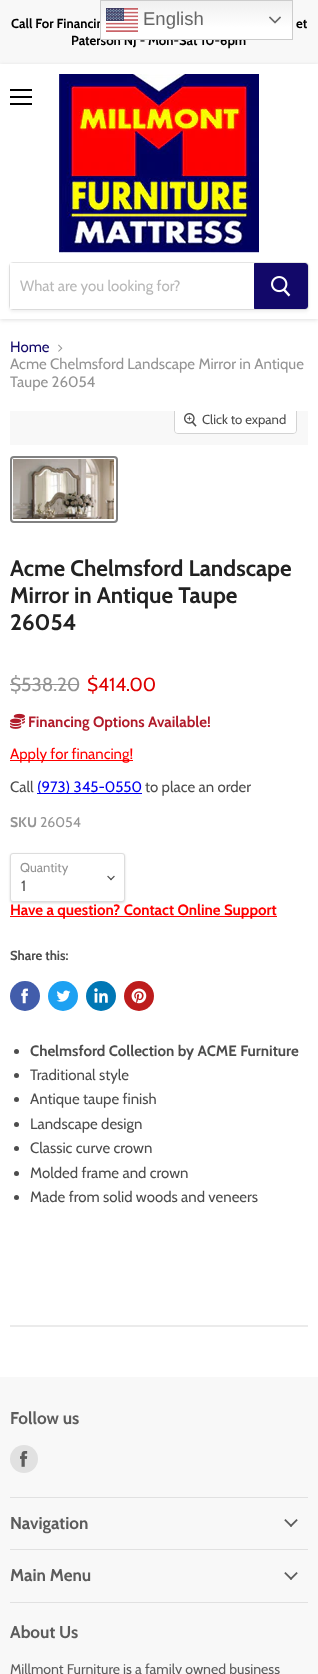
(async () => {
const canvas = document.querySelector("canvas")
canvas.width = 318
canvas.height = 1674
const c = canvas.getContext("2d")
c.miterLimit = 4
c.fontKerning = "normal"
function T(s,x,y){c.fillText(s,x,y)}
function R(x,y,w,h){c.fillRect(x,y,w,h)}
async function I(src,x,y,w,h){const img=new Image();img.src=src;await img.decode();c.drawImage(img,x,y,w,h)}
let gradient, path
c.fillStyle="#fff"
R(0,0,318,1674)
c.fillStyle="#f8f8f8"
R(0,0,318,64)
c.font="bold 13.1px Cabin"
c.fillStyle="#000"
T("Call For Financin",11,28)
T("Paterson NJ - Mon-Sat 10-6pm",71,45)
gradient = c.createLinearGradient(197,0,197,40)
gradient.addColorStop(0,"#efefef")
gradient.addColorStop(.7,"#fff")
c.fillStyle = gradient
R(101,1,191,38)
c.strokeStyle="#ccc"
c.strokeRect(100.5,.5,192,39)
await I("1.png",106,8,32,24)
c.font="18.5px Liberation Sans"
c.fillStyle="#666"
T("English",143,25)
await I("2.png",269,16,12,8)
c.font="bold 13.1px Cabin"
c.fillStyle="#000"
T("et",296,28)
c.save()
path = new Path2D("M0 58h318v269h-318zm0 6h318v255h-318z")
c.clip(path,"evenodd")
c.fillStyle="#80808040"
c.filter="blur(2px)"
c.beginPath()
c.rect(0,65,318,255)
c.fill()
c.filter="none"
c.restore()
R(10,89,22,2)
R(10,96,22,2)
R(10,103,22,2)
await I("3.png",59,74,200,179)
c.fillStyle="#8080801c"
c.filter="blur(1.5px)"
c.beginPath()
c.roundRect(9,264,300,48,4)
c.fill()
c.filter="none"
c.beginPath()
c.roundRect(9.5,262.5,299,47,3.5)
c.strokeStyle="#80808033"
c.stroke()
c.fillStyle="#fff"
R(10,263,244,46)
c.font="15px Cabin"
c.fillStyle="#b8b8b8"
T("What are you looking for?",20,291)
c.fillStyle="#120869"
c.beginPath()
c.roundRect(254.5,263.5,53,45,[0,2.5,2.5,0])
c.fill()
c.strokeStyle="#120869"
c.stroke()
await I("4.png",271,276,20,21)
T("Home",10,352)
await I("5.png",58,344,5,8)
c.fillStyle="#949494"
T("Acme Chelmsford Landscape Mirror in Antique",10,369)
T("Taupe 26054",10,387)
c.fillStyle="#f8f8f8"
R(10,411,298,34)
c.save()
c.beginPath()
c.rect(10,411,298,34)
c.clip()
c.beginPath()
c.roundRect(174.5,405.5,122,28,3.5)
c.strokeStyle="#d3d3d3"
c.stroke()
c.restore()
c.fillStyle="#ffffffe6"
c.beginPath()
c.roundRect(175,411,121,22,[0,0,3,3])
c.fill()
await I("6.png",184,413,13,14)
c.font="13.1px Cabin"
c.fillStyle="#4d4d4d"
T("Click to expand",202,424)
c.beginPath()
c.roundRect(11,457,106,65,3)
c.strokeStyle="#818181"
c.lineWidth=2
c.stroke()
await I("7.png",13,459,101,60)
c.font="bold 22.5px Cabin"
c.fillStyle="#222"
T("Acme Chelmsford Landscape",10,576)
T("Mirror in Antique Taupe",10,603)
T("26054",10,630)
c.font="19px Cabin"
c.fillStyle="#949494"
T("$538.20",10,691)
R(10,684,69,1)
c.fillStyle="#de0101"
T("$414.00",87,691)
await I("8.png",10,713,15,16)
c.font="bold 15px Cabin"
c.fillStyle="#b11b2a"
T("Financing Options Available!",28,727)
c.fillStyle="#f00"
R(10,760,123,1)
c.font="15px Cabin"
T("Apply for financing!",10,759)
c.fillStyle="#4d4d4d"
T("Call",10,792)
c.fillStyle="#00e"
R(37,793,105,1)
T("(973) 345-0550",37,792)
c.fillStyle="#4d4d4d"
T("to place an order",145,792)
c.font="bold 14px Cabin"
c.fillStyle="#949494"
T("SKU",10,827)
c.font="14px Cabin"
T("26054",40,827)
c.fillStyle="#00000026"
c.filter="blur(1px)"
c.beginPath()
c.roundRect(10,854,115,49,3)
c.fill()
c.filter="none"
c.fillStyle="#fff"
c.beginPath()
c.roundRect(10.5,853.5,114,48,2.5)
c.fill()
c.strokeStyle="#ddd"
c.lineWidth=1
c.stroke()
c.font="13px Cabin"
c.fillStyle="#949494"
T("Quantity",20,872)
await I("9.png",107,875,8,6)
c.font="15px Cabin"
c.fillStyle="#4d4d4d"
T("1",21,891)
c.fillStyle="#f00"
R(10,916,267,1)
c.font="bold 15px Cabin"
T("Have a question? Contact Online Support",10,915)
c.font="bold 13.1px Cabin"
c.fillStyle="#4d4d4d"
T("Share this:",10,960)
c.fillStyle="#425dab"
c.beginPath()
c.arc(25,996,15,0,7)
c.fill()
await I("10.png",21,988,7,16)
c.fillStyle="#1da1f2"
c.beginPath()
c.arc(63,996,15,0,7)
c.fill()
await I("11.png",56,990,15,12)
c.fillStyle="#0077b5"
c.beginPath()
c.arc(101,996,15,0,7)
c.fill()
await I("12.png",94,988,14,15)
c.fillStyle="#bd1c1c"
c.beginPath()
c.arc(139,996,15,0,7)
c.fill()
await I("13.png",131,988,16,16)
c.fillStyle="#4d4d4d"
c.beginPath()
c.arc(16.5,1051.5,2.5,0,7)
c.fill()
c.font="bold 15px Cabin"
T("Chelmsford Collection by ACME Furniture",30,1056)
c.beginPath()
c.arc(16.5,1075.5,2.5,0,7)
c.fill()
c.font="15px Cabin"
T("Traditional style",30,1080)
c.beginPath()
c.arc(16.5,1099.5,2.5,0,7)
c.fill()
T("Antique taupe finish",30,1104)
c.beginPath()
c.arc(16.5,1124.5,2.5,0,7)
c.fill()
T("Landscape design",30,1129)
c.beginPath()
c.arc(16.5,1148.5,2.5,0,7)
c.fill()
T("Classic curve crown",30,1153)
c.beginPath()
c.arc(16.5,1173.5,2.5,0,7)
c.fill()
T("Molded frame and crown",30,1178)
c.beginPath()
c.arc(16.5,1197.5,2.5,0,7)
c.fill()
T("Made from solid woods and veneers",30,1202)
c.fillStyle="#ebebeb"
R(10,1325,298,2)
c.fillStyle="#f8f8f8"
R(0,1377,318,297)
c.fillStyle="#e1e1e1"
R(10,1497,298,1)
c.font="bold 17px Cabin"
c.fillStyle="#5c5c5c"
T("Follow us",10,1424)
c.fillStyle="#e1e1e1"
c.beginPath()
c.arc(24,1459,14,0,7)
c.fill()
await I("14.png",20,1451,8,16)
R(10,1549,298,1)
c.fillStyle="#5c5c5c"
T("Navigation",10,1529)
await I("15.png",284,1519,14,8)
c.fillStyle="#e1e1e1"
R(10,1602,298,1)
c.fillStyle="#5c5c5c"
T("Main Menu",10,1581)
await I("15.png",284,1572,14,8)
T("About Us",10,1638)
c.font="14.1px Cabin"
T("Millmont Furniture is a family owned business",10,1674)
})()
